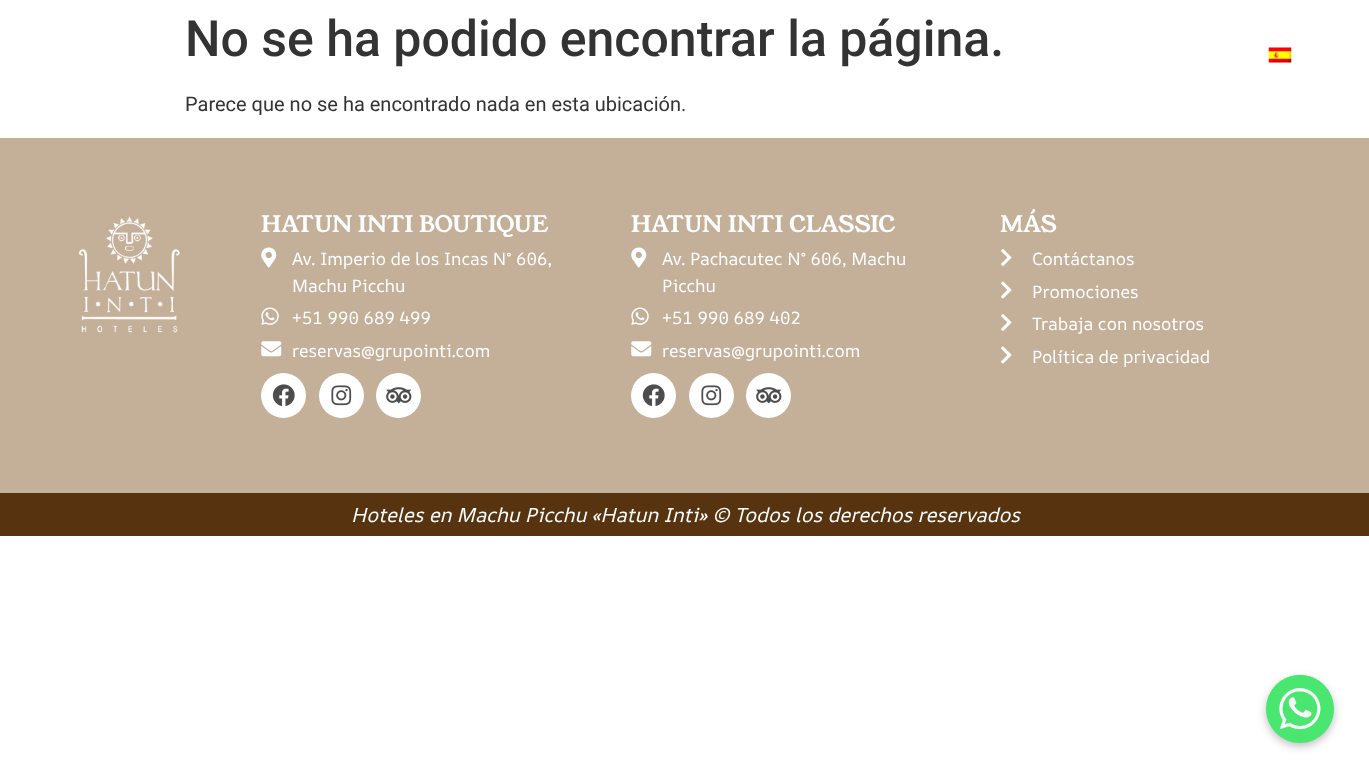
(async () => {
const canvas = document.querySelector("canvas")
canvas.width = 1369
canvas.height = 773
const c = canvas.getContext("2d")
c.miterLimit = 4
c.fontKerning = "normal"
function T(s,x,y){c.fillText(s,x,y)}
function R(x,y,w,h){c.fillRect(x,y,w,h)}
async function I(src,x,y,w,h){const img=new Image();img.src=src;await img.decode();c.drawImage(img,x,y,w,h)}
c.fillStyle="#fff"
R(0,0,1369,773)
c.font="500 50px Roboto"
c.fillStyle="#333"
T("No se ha podido encontrar la página.",185,56)
c.font="20px Roboto"
T("Parece que no se ha encontrado nada en esta ubicación.",185,111)
await I("1.png",657,52,7,4)
await I("2.png",1268,47,24,16)
c.fillStyle="#c4af99"
R(0,138,1369,355)
await I("3.png",78,216,102,117)
c.font="22.5px Young Serif"
c.fillStyle="#fff"
T("HATUN INTI BOUTIQUE",261,232)
await I("4.png",261,247,16,21)
c.font="17.5px AR One Sans"
T("Av. Imperio de los Incas N° 606,",292,265)
T("Machu Picchu",292,292)
await I("5.png",261,307,18,18)
T("+51 990 689 499",292,324)
await I("6.png",261,341,21,16)
T("reservas@grupointi.com",292,357)
c.beginPath()
c.arc(283.5,395.5,22.5,0,7)
c.fill()
await I("7.png",272,384,23,22)
c.beginPath()
c.arc(341.5,395.5,22.5,0,7)
c.fill()
await I("8.png",331,385,21,21)
c.beginPath()
c.arc(398.5,395.5,22.5,0,7)
c.fill()
await I("9.png",386,387,26,17)
c.font="22.5px Young Serif"
T("HATUN INTI CLASSIC",631,232)
await I("4.png",631,247,16,21)
c.font="17.5px AR One Sans"
T("Av. Pachacutec N° 606, Machu",662,265)
T("Picchu",662,292)
await I("5.png",631,307,18,18)
T("+51 990 689 402",662,324)
await I("6.png",631,341,21,16)
T("reservas@grupointi.com",662,357)
c.beginPath()
c.arc(653.5,395.5,22.5,0,7)
c.fill()
await I("7.png",642,384,23,22)
c.beginPath()
c.arc(711.5,395.5,22.5,0,7)
c.fill()
await I("8.png",701,385,21,21)
c.beginPath()
c.arc(768.5,395.5,22.5,0,7)
c.fill()
await I("9.png",756,387,26,17)
c.font="22.5px Young Serif"
T("MÁS",1000,232)
await I("10.png",1001,249,11,17)
c.font="17.5px AR One Sans"
T("Contáctanos",1032,265)
await I("11.png",1001,281,11,18)
T("Promociones",1032,298)
await I("10.png",1001,314,11,17)
T("Trabaja con nosotros",1032,330)
await I("11.png",1001,346,11,18)
T("Política de privacidad",1032,363)
c.fillStyle="#573310"
R(0,493,1369,43)
c.font="italic 20px AR One Sans"
c.fillStyle="#fff"
T("Hoteles en Machu Picchu «Hatun Inti» © Todos los derechos reservados",351,522)
c.fillStyle="#00000040"
c.filter="blur(4px)"
c.beginPath()
c.roundRect(1266,679,68,67,33.5)
c.fill()
c.filter="none"
c.fillStyle="#49e670"
c.beginPath()
c.arc(1300,709,34,0,7)
c.fill()
await I("12.png",1266,675,68,55)
})()
